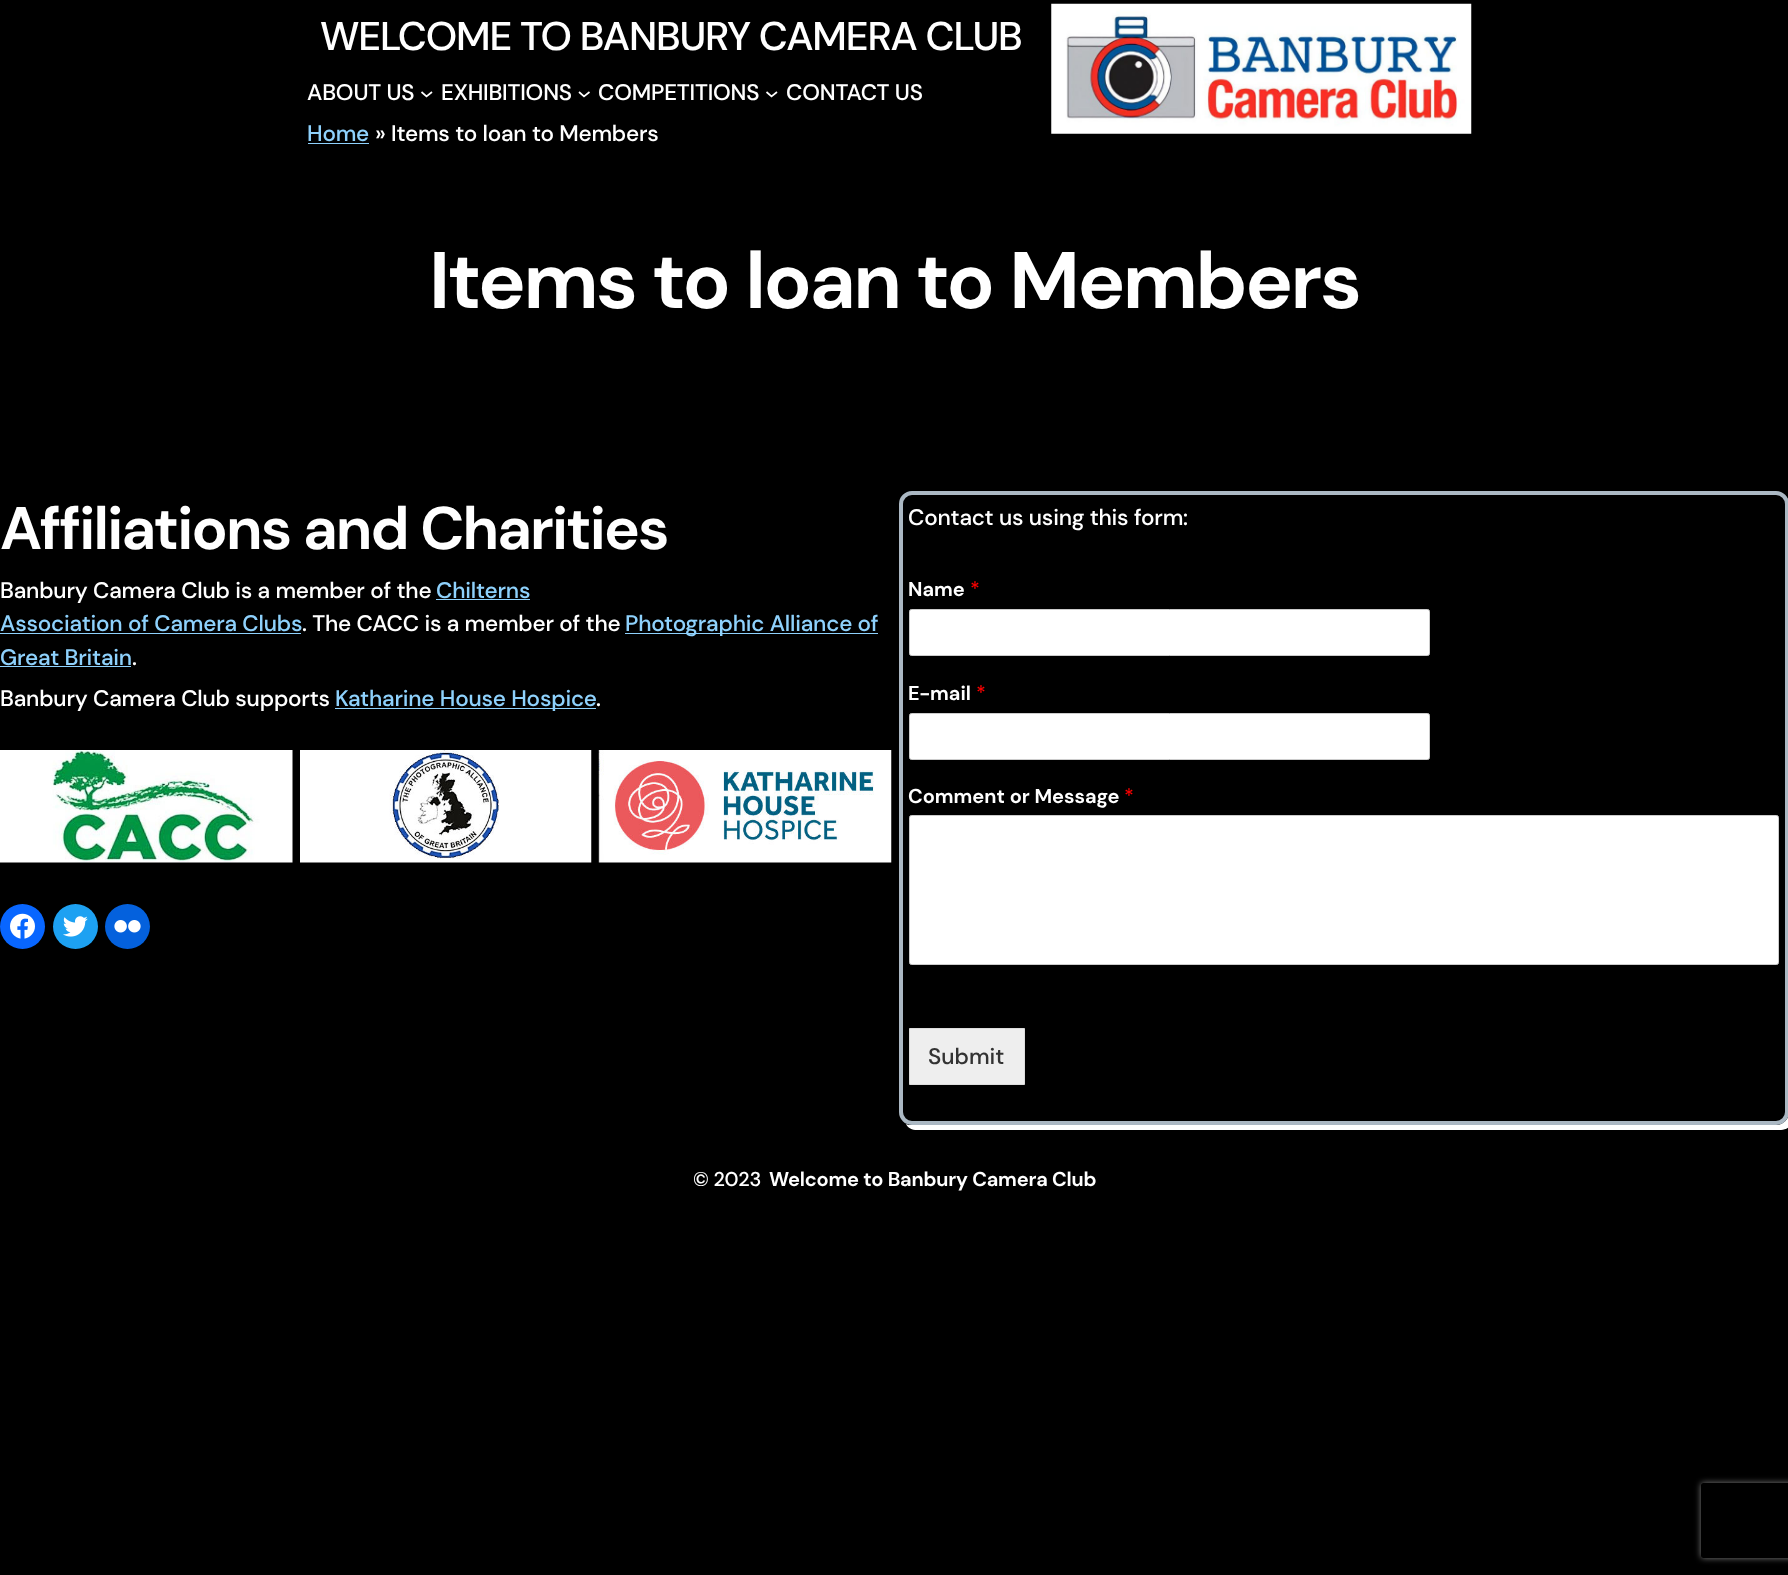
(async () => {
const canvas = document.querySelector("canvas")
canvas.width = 1788
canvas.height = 1575
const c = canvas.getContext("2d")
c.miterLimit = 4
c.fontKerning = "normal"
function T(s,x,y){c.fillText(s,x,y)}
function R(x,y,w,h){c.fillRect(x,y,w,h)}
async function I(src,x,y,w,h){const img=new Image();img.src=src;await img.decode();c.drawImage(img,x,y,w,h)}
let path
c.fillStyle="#000"
R(0,0,1788,1575)
c.letterSpacing="-1.2px"
c.font="500 40px DM Sans"
c.fillStyle="#fff"
T("WELCOME TO BANBURY CAMERA CLUB",320,50)
c.letterSpacing="-0.2px"
c.font="500 22.5px DM Sans"
T("ABOUT US",307,100)
path = new Path2D("M421.5 92l5 4.5l5.5-4.5")
c.strokeStyle="#fff"
c.lineWidth=1.7
c.stroke(path)
T("EXHIBITIONS",441,100)
path = new Path2D("M579 92l5 4.5l5.5-4.5")
c.stroke(path)
T("COMPETITIONS",598,100)
path = new Path2D("M766.5 92l5 4.5l5.5-4.5")
c.stroke(path)
T("CONTACT US",786,100)
c.fillStyle="#8ed1fc"
T("Home",307,141)
R(308,143,61,1)
c.fillStyle="#fff"
T("» Items to loan to Members",375,141)
await I("1.png",1051,3,421,131)
c.letterSpacing="-2.4px"
c.font="bold 80px DM Sans"
T("Items to loan to Members",429,308)
c.letterSpacing="-1.8px"
c.font="bold 60px DM Sans"
T("Affiliations and Charities",0,549)
c.letterSpacing="-0.2px"
c.font="500 22.5px DM Sans"
T("Banbury Camera Club is a member of the",0,598)
c.fillStyle="#8ed1fc"
T("Chilterns",436,598)
R(436,599,94,1)
T("Association of Camera Clubs",0,631)
R(0,633,301,1)
c.fillStyle="#fff"
T(". The CACC is a member of the",302,631)
c.fillStyle="#8ed1fc"
R(625,633,253,1)
T("Photographic Alliance of",625,631)
T("Great Britain",0,665)
R(0,666,131,1)
c.fillStyle="#fff"
T(".",132,665)
T("Banbury Camera Club supports",0,706)
c.fillStyle="#8ed1fc"
R(335,708,261,1)
T("Katharine House Hospice",335,706)
c.fillStyle="#fff"
T(".",596,706)
await I("2.png",0,750,293,113)
await I("3.png",300,750,292,113)
await I("4.png",598,750,294,113)
c.fillStyle="#0866ff"
c.beginPath()
c.arc(22.5,926.5,22.5,0,7)
c.fill()
await I("5.png",10,913,25,26)
c.fillStyle="#1da1f2"
c.beginPath()
c.arc(75.5,926.5,22.5,0,7)
c.fill()
await I("6.png",63,916,25,21)
c.fillStyle="#0461dd"
c.beginPath()
c.arc(127.5,926.5,22.5,0,7)
c.fill()
await I("7.png",114,920,27,13)
c.fillStyle="#fff"
path = new Path2D("M906 1124c2 4 6 6 11 6h864c7 0 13-6 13-13v-608c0-5-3-9-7-11c1 1 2 3 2 6v608c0 7-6 13-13 13h-865c-2 0-3 0-5-1z")
c.fill(path)
c.beginPath()
c.roundRect(901,493,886,630,11)
c.strokeStyle="#abb8c3"
c.lineWidth=4
c.stroke()
T("Contact us using this form:",908,525)
c.letterSpacing="0px"
c.font="bold 20px DM Sans"
T("Name",908,596)
c.font="500 20px DM Sans"
c.fillStyle="#f00"
T("*",970,596)
c.fillStyle="#fff"
c.beginPath()
c.roundRect(909.5,609.5,520,46,2)
c.fill()
c.strokeStyle="#ccc"
c.lineWidth=1
c.stroke()
c.font="bold 20px DM Sans"
T("E-mail",908,700)
c.font="500 20px DM Sans"
c.fillStyle="#f00"
T("*",976,700)
c.fillStyle="#fff"
c.beginPath()
c.roundRect(909.5,713.5,520,46,2)
c.fill()
c.stroke()
c.font="bold 20px DM Sans"
T("Comment or Message",908,803)
c.font="500 20px DM Sans"
c.fillStyle="#f00"
T("*",1124,803)
c.fillStyle="#fff"
c.beginPath()
c.roundRect(909.5,815.5,869,149,2)
c.fill()
c.stroke()
c.fillStyle="#eee"
c.beginPath()
c.rect(909.5,1028.5,115,56)
c.fill()
c.strokeStyle="#ddd"
c.stroke()
c.font="500 22.5px DM Sans"
c.fillStyle="#333"
T("Submit",928,1064)
c.save()
path = new Path2D("M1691 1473h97v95h-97zm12.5 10h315c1.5 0 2.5 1 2.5 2.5v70c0 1.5-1 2.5-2.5 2.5h-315c-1.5 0-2.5-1-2.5-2.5v-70c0-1.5 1-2.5 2.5-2.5z")
c.clip(path,"evenodd")
c.fillStyle="#808080"
c.filter="blur(3px)"
c.beginPath()
c.roundRect(1701,1483,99,75,2.5)
c.fill()
c.filter="none"
c.restore()
c.letterSpacing="-0.2px"
c.font="500 20px DM Sans"
c.fillStyle="#fff"
T("© 2023",693,1186)
c.font="bold 20px DM Sans"
T("Welcome to Banbury Camera Club",769,1186)
})()
